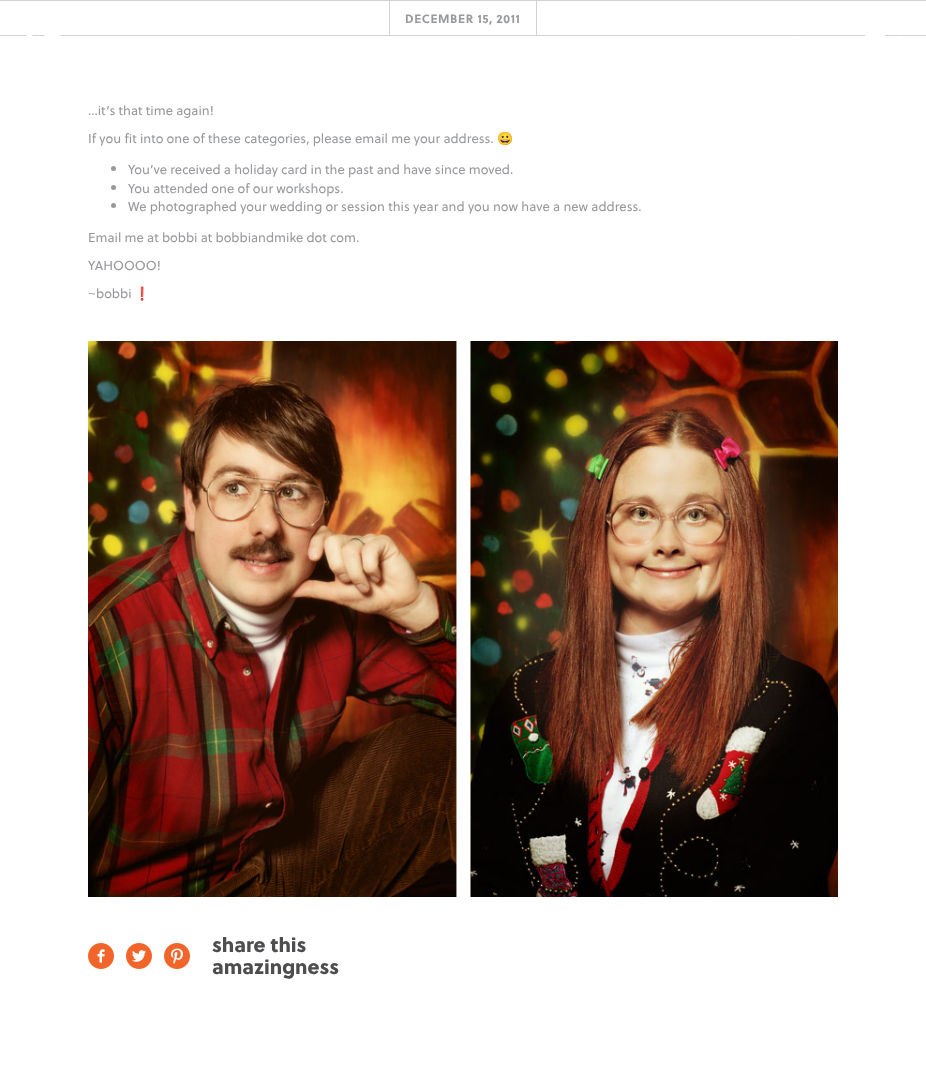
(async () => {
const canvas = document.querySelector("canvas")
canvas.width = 926
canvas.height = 1077
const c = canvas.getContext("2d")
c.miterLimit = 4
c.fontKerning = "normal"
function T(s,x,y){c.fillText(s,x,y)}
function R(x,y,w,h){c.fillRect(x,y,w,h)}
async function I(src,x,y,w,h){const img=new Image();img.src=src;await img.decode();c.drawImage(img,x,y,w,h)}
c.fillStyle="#fff"
R(0,0,926,1077)
c.fillStyle="#d0d2d3"
R(0,0,926,1)
R(0,35,926,1)
R(536,1,1,34)
R(389,1,1,34)
c.letterSpacing="0.6px"
c.font="bold 12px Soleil"
c.fillStyle="#97999c"
T("DECEMBER 15, 2011",405,23)
c.letterSpacing="0px"
c.font="13px Soleil"
T("…it’s that time again!",88,115)
T("If you fit into one of these categories, please email me your address.",88,143)
c.font="13px Noto Color Emoji"
T("😀",497,143)
c.beginPath()
c.arc(113.5,168.5,2.5,0,7)
c.fill()
c.font="13px Soleil"
T("You’ve received a holiday card in the past and have since moved.",128,174)
c.beginPath()
c.arc(113.5,187.5,2.5,0,7)
c.fill()
T("You attended one of our workshops.",128,193)
c.beginPath()
c.arc(113.5,205.5,2.5,0,7)
c.fill()
T("We photographed your wedding or session this year and you now have a new address.",128,211)
T("Email me at bobbi at bobbiandmike dot com.",88,242)
T("YAHOOOO!",88,270)
c.font="13px Liberation Sans"
T("~",88,298)
c.font="13px Soleil"
T("bobbi",96,298)
c.font="13px Noto Color Emoji"
T("❗",134,298)
await I("1.png",88,341,750,556)
await I("2.png",88,943,26,26)
await I("3.png",126,943,26,26)
await I("4.png",164,943,26,26)
c.font="800 20px Soleil"
c.fillStyle="#4d4d4f"
T("share this",212,952)
T("amazingness",212,974)
await I("5.png",26,35,34,1)
c.strokeStyle="#ffffff80"
c.strokeRect(793.5,20.5,107,31)
c.fillStyle="#fff"
R(865,35,20,1)
})()
